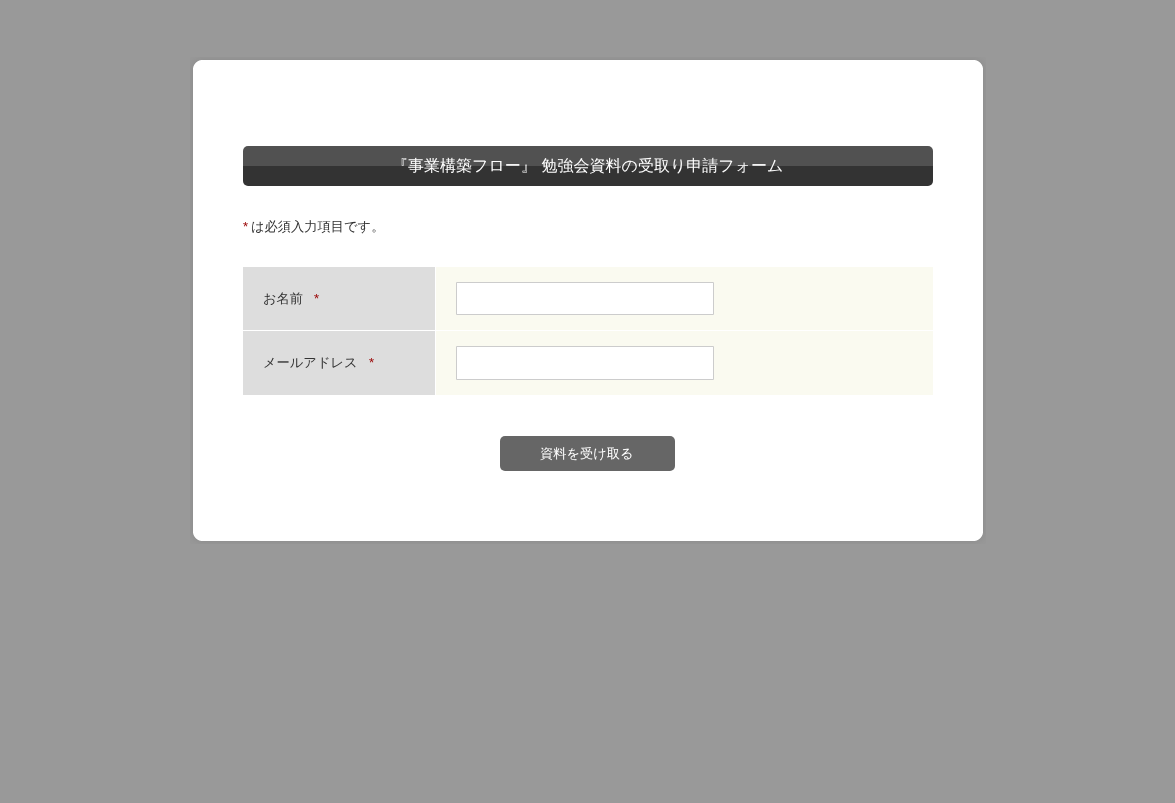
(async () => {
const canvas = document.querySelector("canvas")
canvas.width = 1175
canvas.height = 803
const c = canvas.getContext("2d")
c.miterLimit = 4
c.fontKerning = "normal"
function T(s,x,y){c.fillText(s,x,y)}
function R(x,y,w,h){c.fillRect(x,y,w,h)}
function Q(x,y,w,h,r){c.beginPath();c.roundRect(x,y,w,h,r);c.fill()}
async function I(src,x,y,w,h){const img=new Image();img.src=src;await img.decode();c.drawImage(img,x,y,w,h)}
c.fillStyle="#999"
R(0,0,1175,803)
await I("1.png",190,57,13,13)
await I("2.png",203,57,770,13)
await I("3.png",973,57,13,13)
await I("4.png",190,70,13,461)
c.fillStyle="#fff"
R(203,70,770,461)
c.fillStyle="#333"
Q(243,146,690,40,5)
c.font="500 16px WenQuanYi Zen Hei"
c.fillStyle="#fff"
T("『事業構築フロー』 勉強会資料の受取り申請フォーム",392,171)
c.fillStyle="#ffffff26"
R(243,146,690,20)
c.font="13.25px Liberation Sans"
c.fillStyle="#900"
T("*",243,231)
c.font="500 13.25px WenQuanYi Zen Hei"
c.fillStyle="#333"
T("は必須入力項目です。",251,231)
c.fillStyle="#fafaf0"
R(436,267,497,63)
c.fillStyle="#ddd"
R(243,267,192,63)
c.fillStyle="#333"
T("お名前",263,303)
c.font="13.25px Liberation Sans"
c.fillStyle="#900"
T("*",314,303)
c.fillStyle="#fff"
c.beginPath()
c.rect(456.5,282.5,257,32)
c.fill()
c.strokeStyle="#ccc"
c.stroke()
c.fillStyle="#fafaf0"
R(436,331,497,64)
c.fillStyle="#ddd"
R(243,331,192,64)
c.font="500 13.25px WenQuanYi Zen Hei"
c.fillStyle="#333"
T("メールアドレス",263,367)
c.font="13.25px Liberation Sans"
c.fillStyle="#900"
T("*",369,367)
c.fillStyle="#fff"
c.beginPath()
c.rect(456.5,346.5,257,33)
c.fill()
c.stroke()
c.fillStyle="#666"
Q(500,436,175,35,5)
c.font="500 13.25px WenQuanYi Zen Hei"
c.fillStyle="#fff"
T("資料を受け取る",540,458)
await I("5.png",973,70,13,461)
await I("6.png",190,531,13,13)
await I("7.png",203,531,770,13)
await I("8.png",973,531,13,13)
})()
